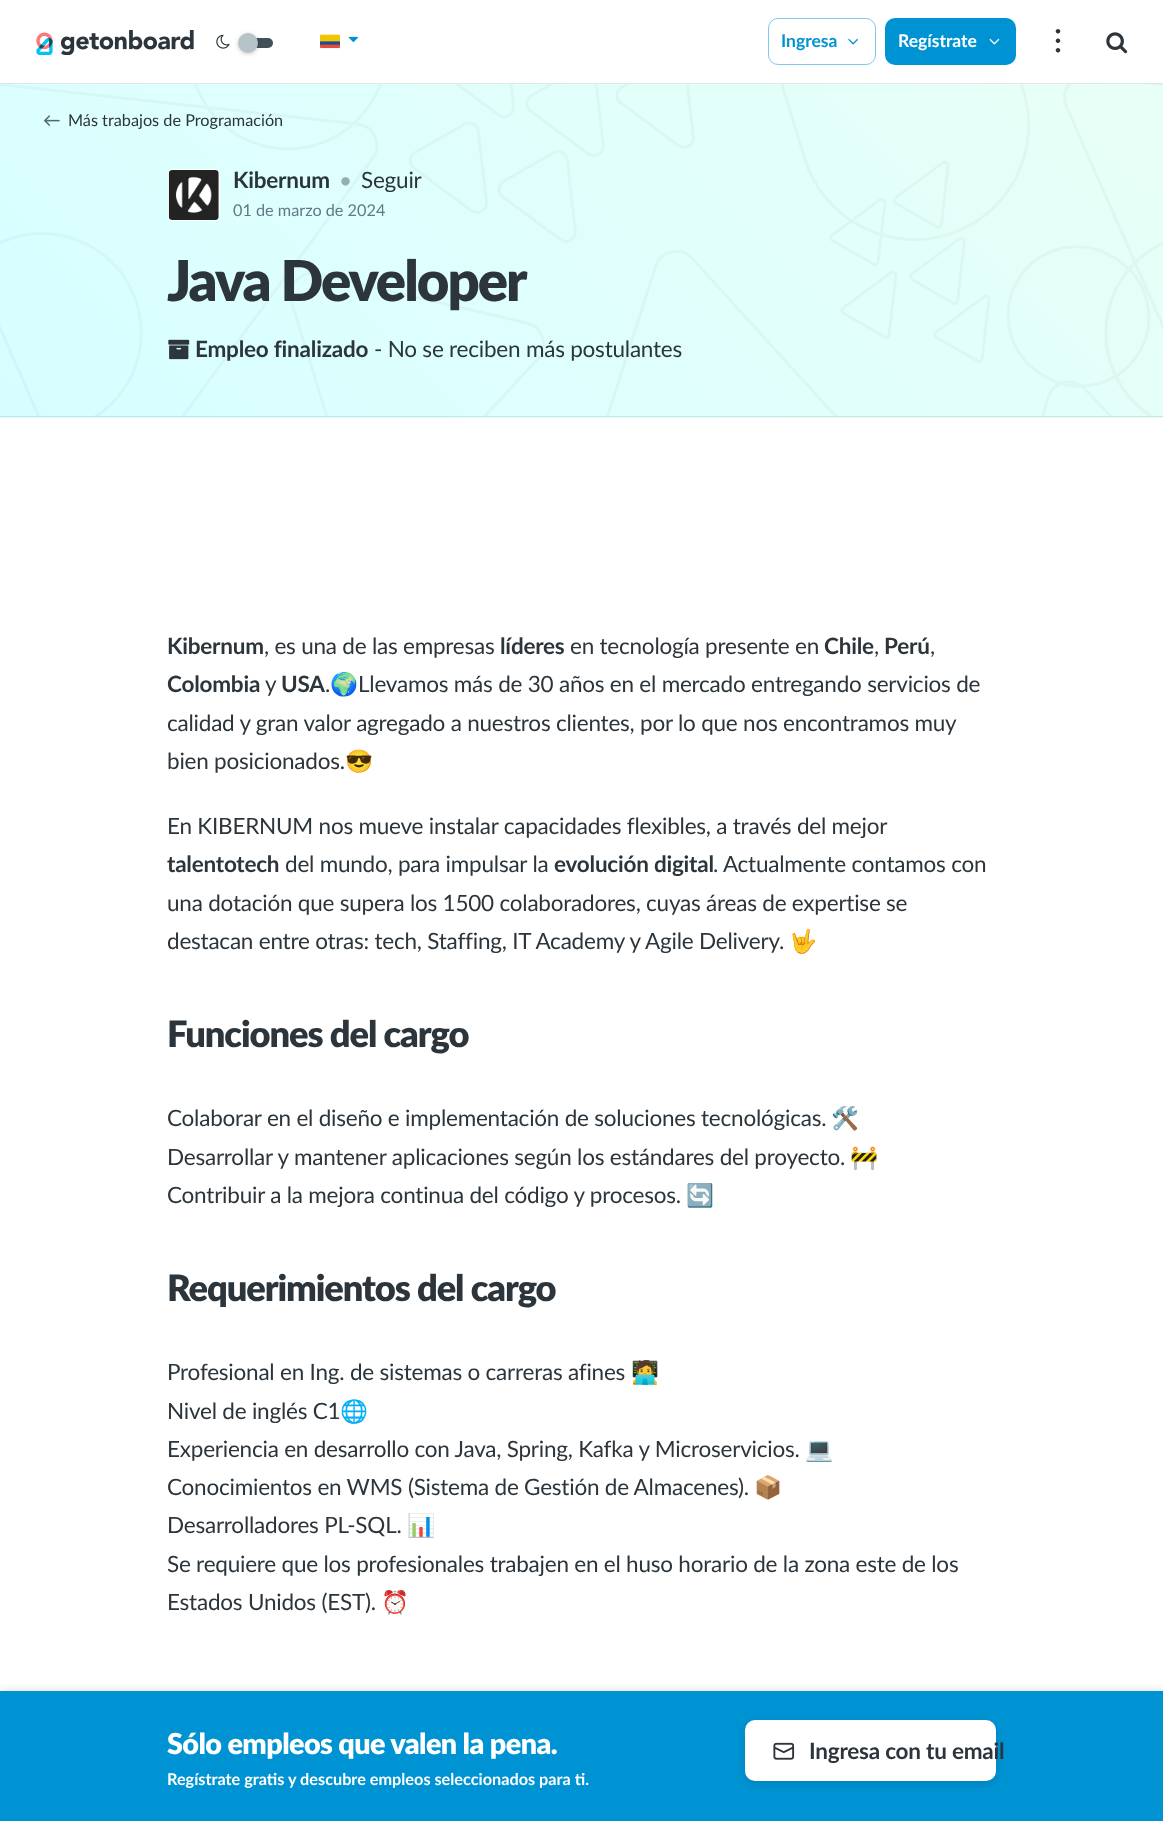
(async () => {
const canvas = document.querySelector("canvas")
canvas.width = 1163
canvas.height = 1821
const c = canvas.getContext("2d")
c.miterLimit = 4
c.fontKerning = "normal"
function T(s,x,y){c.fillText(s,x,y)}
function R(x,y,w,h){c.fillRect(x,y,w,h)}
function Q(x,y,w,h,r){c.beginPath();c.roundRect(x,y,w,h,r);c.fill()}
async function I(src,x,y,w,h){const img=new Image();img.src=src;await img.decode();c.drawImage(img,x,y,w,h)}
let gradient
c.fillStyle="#fff"
R(0,0,1163,1821)
c.fillStyle="#e1e6e7"
R(0,83,1163,1)
await I("1.png",36,30,158,25)
await I("2.png",216,34,14,15)
c.fillStyle="#415059"
Q(248,38,25,10,5)
c.fillStyle="#00000033"
c.filter="blur(2px)"
c.beginPath()
c.roundRect(238,34,20,20,10)
c.fill()
c.filter="none"
c.fillStyle="#b6c3c9"
c.beginPath()
c.arc(248,43,10,0,7)
c.fill()
await I("3.png",320,34,20,15)
await I("4.png",348,36,10,6)
c.beginPath()
c.roundRect(768.5,18.5,107,46,9.5)
c.strokeStyle="#80c9e9"
c.stroke()
c.font="bold 17.5px Lato"
c.fillStyle="#0093d3"
T("Ingresa",781,47)
await I("5.png",848,38,10,7)
Q(885,18,131,47,10)
c.fillStyle="#fff"
T("Regístrate",898,47)
await I("6.png",989,38,11,7)
c.letterSpacing="1px"
c.font="36px Lato"
c.fillStyle="#2b353b"
c.save()
c.translate(1056,27)
c.rotate(90 * Math.PI / 180)
c.fillText("...",0,0)
c.restore()
await I("7.png",1106,32,22,22)
gradient = c.createLinearGradient(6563,-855,938,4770)
gradient.addColorStop(0,"#dbffff")
gradient.addColorStop(.17,"#c0f3ff")
gradient.addColorStop(.33,"#e5d9ff")
gradient.addColorStop(.5,"#effff1")
gradient.addColorStop(.67,"#dbffff")
gradient.addColorStop(.83,"#c0f3ff")
gradient.addColorStop(1,"#e5d9ff")
c.fillStyle = gradient
R(0,84,1163,334)
gradient = c.createLinearGradient(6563,-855,938,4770)
gradient.addColorStop(0,"#c6e6e7")
gradient.addColorStop(.17,"#b2dde7")
gradient.addColorStop(.33,"#cec9e7")
gradient.addColorStop(.5,"#d5e6dd")
gradient.addColorStop(.67,"#c6e6e7")
gradient.addColorStop(.83,"#b2dde7")
gradient.addColorStop(1,"#cec9e7")
c.fillStyle = gradient
R(0,416,1163,1)
await I("8.png",0,84,1163,332)
await I("9.png",44,115,16,11)
c.letterSpacing="0px"
c.font="16.25px Lato"
c.fillStyle="#2b353b"
T("Más trabajos de Programación",68,126)
c.fillStyle="#fff"
Q(168,169,52,52,5)
c.beginPath()
c.roundRect(168.5,169.5,51,51,4.5)
c.strokeStyle="#ffffff80"
c.stroke()
await I("10.png",168,170,51,50)
c.letterSpacing="-0.22px"
c.font="bold 22.5px Lato"
c.fillStyle="#2b353b"
T("Kibernum",233,188)
c.font="22.5px Lato"
c.fillStyle="#96aeaf"
T("•",339,188)
c.fillStyle="#2b353b"
T("Seguir",361,188)
c.letterSpacing="0px"
c.font="16.25px Lato"
c.fillStyle="#627884"
T("01 de marzo de 2024",233,216)
c.letterSpacing="-2px"
c.font="900 56.25px Lato"
c.fillStyle="#2b353b"
T("Java Developer",167,301)
await I("11.png",168,339,22,21)
c.letterSpacing="-0.22px"
c.font="bold 22.5px Lato"
T("Empleo finalizado",195,357)
c.font="22.5px Lato"
T("- No se reciben más postulantes",374,357)
c.font="bold 22.5px Lato"
T("Kibernum",167,654)
c.font="22.5px Lato"
T(", es una de las empresas",264,654)
c.font="bold 22.5px Lato"
T("líderes",500,654)
c.font="22.5px Lato"
T("en tecnología presente en",570,654)
c.font="bold 22.5px Lato"
T("Chile",824,654)
c.font="22.5px Lato"
T(",",874,654)
c.font="bold 22.5px Lato"
T("Perú",884,654)
c.font="22.5px Lato"
T(",",930,654)
c.font="bold 22.5px Lato"
T("Colombia",167,692)
c.font="22.5px Lato"
T("y",265,692)
c.font="bold 22.5px Lato"
T("USA",281,692)
c.font="22.5px Lato"
T(".",325,692)
c.font="22.5px Noto Color Emoji"
T("🌍",330,692)
c.font="22.5px Lato"
T("Llevamos más de 30 años en el mercado entregando servicios de",358,692)
T("calidad y gran valor agregado a nuestros clientes, por lo que nos encontramos muy",167,731)
T("bien posicionados.",167,769)
c.font="22.5px Noto Color Emoji"
T("😎",345,769)
c.font="22.5px Lato"
T("En KIBERNUM nos mueve instalar capacidades flexibles, a través del mejor",167,834)
c.font="bold 22.5px Lato"
T("talentotech",167,872)
c.font="22.5px Lato"
T("del mundo, para impulsar la",285,872)
c.font="bold 22.5px Lato"
T("evolución digital",554,872)
c.font="22.5px Lato"
T(". Actualmente contamos con",713,872)
T("una dotación que supera los 1500 colaboradores, cuyas áreas de expertise se",167,911)
T("destacan entre otras: tech, Staffing, IT Academy y Agile Delivery.",167,949)
c.font="22.5px Noto Color Emoji"
T("🤟",789,949)
c.letterSpacing="-1.1px"
c.font="900 36.25px Lato"
T("Funciones del cargo",167,1047)
c.letterSpacing="-0.22px"
c.font="22.5px Lato"
T("Colaborar en el diseño e implementación de soluciones tecnológicas.",167,1126)
c.font="22.5px Noto Color Emoji"
T("🛠️",831,1126)
c.font="22.5px Lato"
T("Desarrollar y mantener aplicaciones según los estándares del proyecto.",167,1165)
c.font="22.5px Noto Color Emoji"
T("🚧",850,1165)
c.font="22.5px Lato"
T("Contribuir a la mejora continua del código y procesos.",167,1203)
c.font="22.5px Noto Color Emoji"
T("🔄",686,1203)
c.letterSpacing="-1.1px"
c.font="900 36.25px Lato"
T("Requerimientos del cargo",167,1301)
c.letterSpacing="-0.22px"
c.font="22.5px Lato"
T("Profesional en Ing. de sistemas o carreras afines",167,1380)
c.font="22.5px Noto Color Emoji"
T("🧑‍💻",631,1380)
c.font="22.5px Lato"
T("Nivel de inglés C1",167,1419)
c.font="22.5px Noto Color Emoji"
T("🌐",340,1419)
c.font="22.5px Lato"
T("Experiencia en desarrollo con Java, Spring, Kafka y Microservicios.",167,1457)
c.font="22.5px Noto Color Emoji"
T("💻",805,1457)
c.font="22.5px Lato"
T("Conocimientos en WMS (Sistema de Gestión de Almacenes).",167,1495)
c.font="22.5px Noto Color Emoji"
T("📦",754,1495)
c.font="22.5px Lato"
T("Desarrolladores PL-SQL.",167,1533)
c.font="22.5px Noto Color Emoji"
T("📊",407,1533)
c.font="22.5px Lato"
T("Se requiere que los profesionales trabajen en el huso horario de la zona este de los",167,1572)
T("Estados Unidos (EST).",167,1610)
c.font="22.5px Noto Color Emoji"
T("⏰",381,1610)
c.fillStyle="#00000040"
c.filter="blur(6px)"
c.beginPath()
c.rect(0,1694,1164,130)
c.fill()
c.filter="none"
c.fillStyle="#0093d3"
R(0,1691,1163,130)
c.letterSpacing="-0.6px"
c.font="900 28.75px Lato"
c.fillStyle="#fff"
T("Sólo empleos que valen la pena.",167,1754)
c.letterSpacing="0px"
c.font="bold 16.25px Lato"
T("Regístrate gratis y descubre empleos seleccionados para ti.",167,1785)
c.fillStyle="#0000001f"
c.filter="blur(4px)"
c.beginPath()
c.roundRect(745,1723,251,61,10)
c.fill()
c.filter="none"
c.fillStyle="#fff"
Q(745,1720,251,61,10)
await I("12.png",773,1742,22,18)
c.letterSpacing="-0.22px"
c.font="bold 22.5px Lato"
c.fillStyle="#2b353b"
T("Ingresa con tu email",809,1759)
})()
